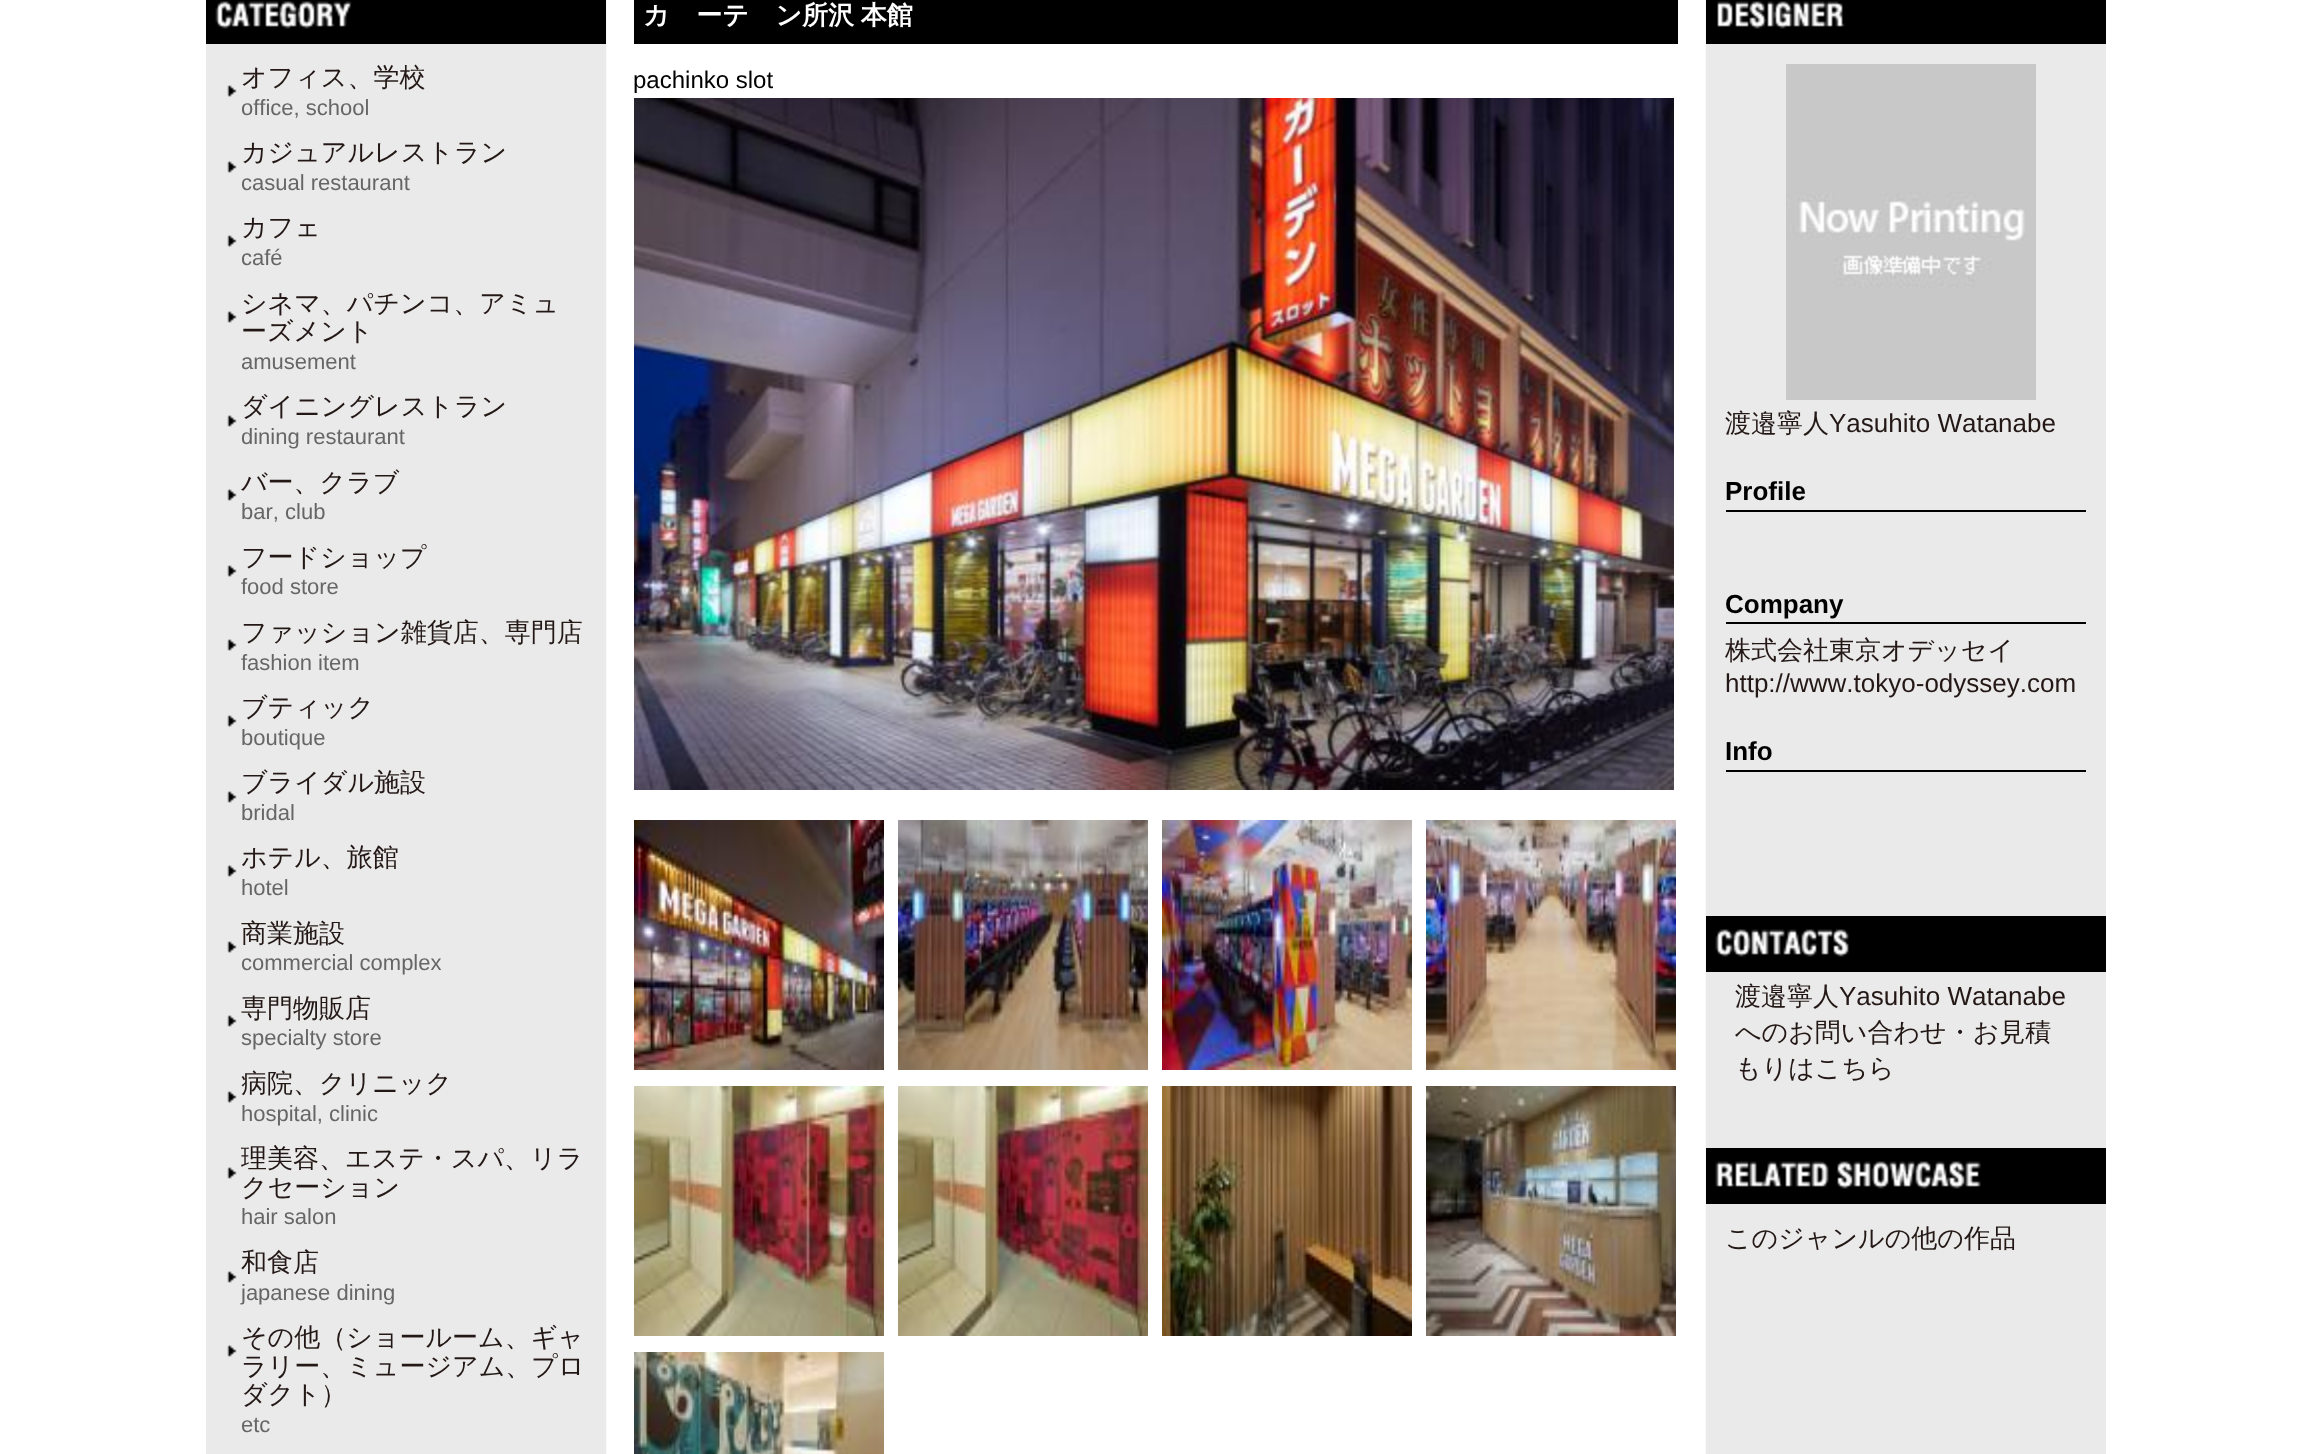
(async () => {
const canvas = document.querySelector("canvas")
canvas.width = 2309
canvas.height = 1454
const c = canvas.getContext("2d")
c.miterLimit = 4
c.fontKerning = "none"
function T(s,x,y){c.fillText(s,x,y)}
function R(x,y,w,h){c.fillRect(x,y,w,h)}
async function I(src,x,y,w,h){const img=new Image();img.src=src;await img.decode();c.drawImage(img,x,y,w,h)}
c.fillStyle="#fff"
R(0,0,2309,1454)
await I("1.png",606,0,1100,1454)
c.fillStyle="#000"
R(634,0,1044,44)
c.wordSpacing="-1px"
c.font="bold 26px WenQuanYi Zen Hei"
c.fillStyle="#fff"
T("ガーデン所沢 本館",643,24)
c.wordSpacing="0px"
c.font="24px Liberation Sans"
c.fillStyle="#000"
T("pachinko slot",633,88)
await I("2.png",634,98,1040,692)
await I("3.png",634,820,250,250)
await I("4.png",898,820,250,250)
await I("5.png",1162,820,250,250)
await I("6.png",1426,820,250,250)
await I("7.png",634,1086,250,250)
await I("8.png",898,1086,250,250)
await I("9.png",1162,1086,250,250)
await I("10.png",1426,1086,250,250)
await I("11.png",634,1352,250,102)
c.fillStyle="#eaeaea"
R(206,44,400,1410)
await I("12.png",206,0,400,44)
await I("13.png",227,85,10,12)
c.font="500 26px WenQuanYi Zen Hei"
c.fillStyle="#231815"
T("オフィス、学校",241,86)
c.font="22px Liberation Sans"
c.fillStyle="#666"
T("office, school",241,115)
await I("13.png",227,161,10,12)
c.font="500 26px WenQuanYi Zen Hei"
c.fillStyle="#231815"
T("カジュアルレストラン",241,161)
c.font="22px Liberation Sans"
c.fillStyle="#666"
T("casual restaurant",241,190)
await I("13.png",227,235,10,12)
c.font="500 26px WenQuanYi Zen Hei"
c.fillStyle="#231815"
T("カフェ",241,236)
c.font="22px Liberation Sans"
c.fillStyle="#666"
T("café",241,265)
await I("13.png",227,311,10,12)
c.font="500 26px WenQuanYi Zen Hei"
c.fillStyle="#231815"
T("シネマ、パチンコ、アミュ",241,312)
T("ーズメント",241,340)
c.font="22px Liberation Sans"
c.fillStyle="#666"
T("amusement",241,369)
await I("13.png",227,415,10,12)
c.font="500 26px WenQuanYi Zen Hei"
c.fillStyle="#231815"
T("ダイニングレストラン",241,415)
c.font="22px Liberation Sans"
c.fillStyle="#666"
T("dining restaurant",241,444)
await I("13.png",227,489,10,12)
c.font="500 26px WenQuanYi Zen Hei"
c.fillStyle="#231815"
T("バー、クラブ",241,491)
c.font="22px Liberation Sans"
c.fillStyle="#666"
T("bar, club",241,519)
await I("13.png",227,565,10,12)
c.font="500 26px WenQuanYi Zen Hei"
c.fillStyle="#231815"
T("フードショップ",241,566)
c.font="22px Liberation Sans"
c.fillStyle="#666"
T("food store",241,594)
await I("13.png",227,639,10,12)
c.font="500 26px WenQuanYi Zen Hei"
c.fillStyle="#231815"
T("ファッション雑貨店、専門店",241,641)
c.font="22px Liberation Sans"
c.fillStyle="#666"
T("fashion item",241,670)
await I("13.png",227,715,10,12)
c.font="500 26px WenQuanYi Zen Hei"
c.fillStyle="#231815"
T("ブティック",241,716)
c.font="22px Liberation Sans"
c.fillStyle="#666"
T("boutique",241,745)
await I("13.png",227,791,10,12)
c.font="500 26px WenQuanYi Zen Hei"
c.fillStyle="#231815"
T("ブライダル施設",241,791)
c.font="22px Liberation Sans"
c.fillStyle="#666"
T("bridal",241,820)
await I("13.png",227,865,10,12)
c.font="500 26px WenQuanYi Zen Hei"
c.fillStyle="#231815"
T("ホテル、旅館",241,866)
c.font="22px Liberation Sans"
c.fillStyle="#666"
T("hotel",241,895)
await I("13.png",227,941,10,12)
c.font="500 26px WenQuanYi Zen Hei"
c.fillStyle="#231815"
T("商業施設",241,942)
c.font="22px Liberation Sans"
c.fillStyle="#666"
T("commercial complex",241,970)
await I("13.png",227,1015,10,12)
c.font="500 26px WenQuanYi Zen Hei"
c.fillStyle="#231815"
T("専門物販店",241,1017)
c.font="22px Liberation Sans"
c.fillStyle="#666"
T("specialty store",241,1045)
await I("13.png",227,1091,10,12)
c.font="500 26px WenQuanYi Zen Hei"
c.fillStyle="#231815"
T("病院、クリニック",241,1092)
c.font="22px Liberation Sans"
c.fillStyle="#666"
T("hospital, clinic",241,1121)
await I("13.png",227,1167,10,12)
c.font="500 26px WenQuanYi Zen Hei"
c.fillStyle="#231815"
T("理美容、エステ・スパ、リラ",241,1167)
T("クセーション",241,1196)
c.font="22px Liberation Sans"
c.fillStyle="#666"
T("hair salon",241,1224)
await I("13.png",227,1271,10,12)
c.font="500 26px WenQuanYi Zen Hei"
c.fillStyle="#231815"
T("和食店",241,1271)
c.font="22px Liberation Sans"
c.fillStyle="#666"
T("japanese dining",241,1300)
await I("13.png",227,1345,10,12)
c.font="500 26px WenQuanYi Zen Hei"
c.fillStyle="#231815"
T("その他（ショールーム、ギャ",241,1346)
T("ラリー、ミュージアム、プロ",241,1375)
T("ダクト）",241,1403)
c.font="22px Liberation Sans"
c.fillStyle="#666"
T("etc",241,1432)
c.fillStyle="#eaeaea"
R(1706,44,400,1410)
await I("14.png",1706,0,400,44)
await I("15.png",1786,64,250,336)
c.font="500 26px WenQuanYi Zen Hei"
c.fillStyle="#231815"
T("渡邉寧人",1725,432)
c.font="26px Liberation Sans"
T("Yasuhito Watanabe",1829,432)
c.fillStyle="#000"
R(1726,510,360,2)
c.font="bold 26px Liberation Sans"
T("Profile",1725,500)
R(1726,622,360,2)
T("Company",1725,613)
c.font="500 26px WenQuanYi Zen Hei"
c.fillStyle="#231815"
T("株式会社東京オデッセイ",1725,659)
c.font="26px Liberation Sans"
T("http://www.tokyo-odyssey.com",1725,692)
c.fillStyle="#000"
R(1726,770,360,2)
c.font="bold 26px Liberation Sans"
T("Info",1725,760)
await I("16.png",1706,916,400,56)
c.font="500 26px WenQuanYi Zen Hei"
c.fillStyle="#231815"
T("渡邉寧人",1735,1005)
c.font="26px Liberation Sans"
T("Yasuhito Watanabe",1839,1005)
c.font="500 26px WenQuanYi Zen Hei"
T("へのお問い合わせ・お見積",1735,1041)
T("もりはこちら",1735,1077)
await I("17.png",1706,1148,400,56)
T("このジャンルの他の作品",1725,1247)
})()
